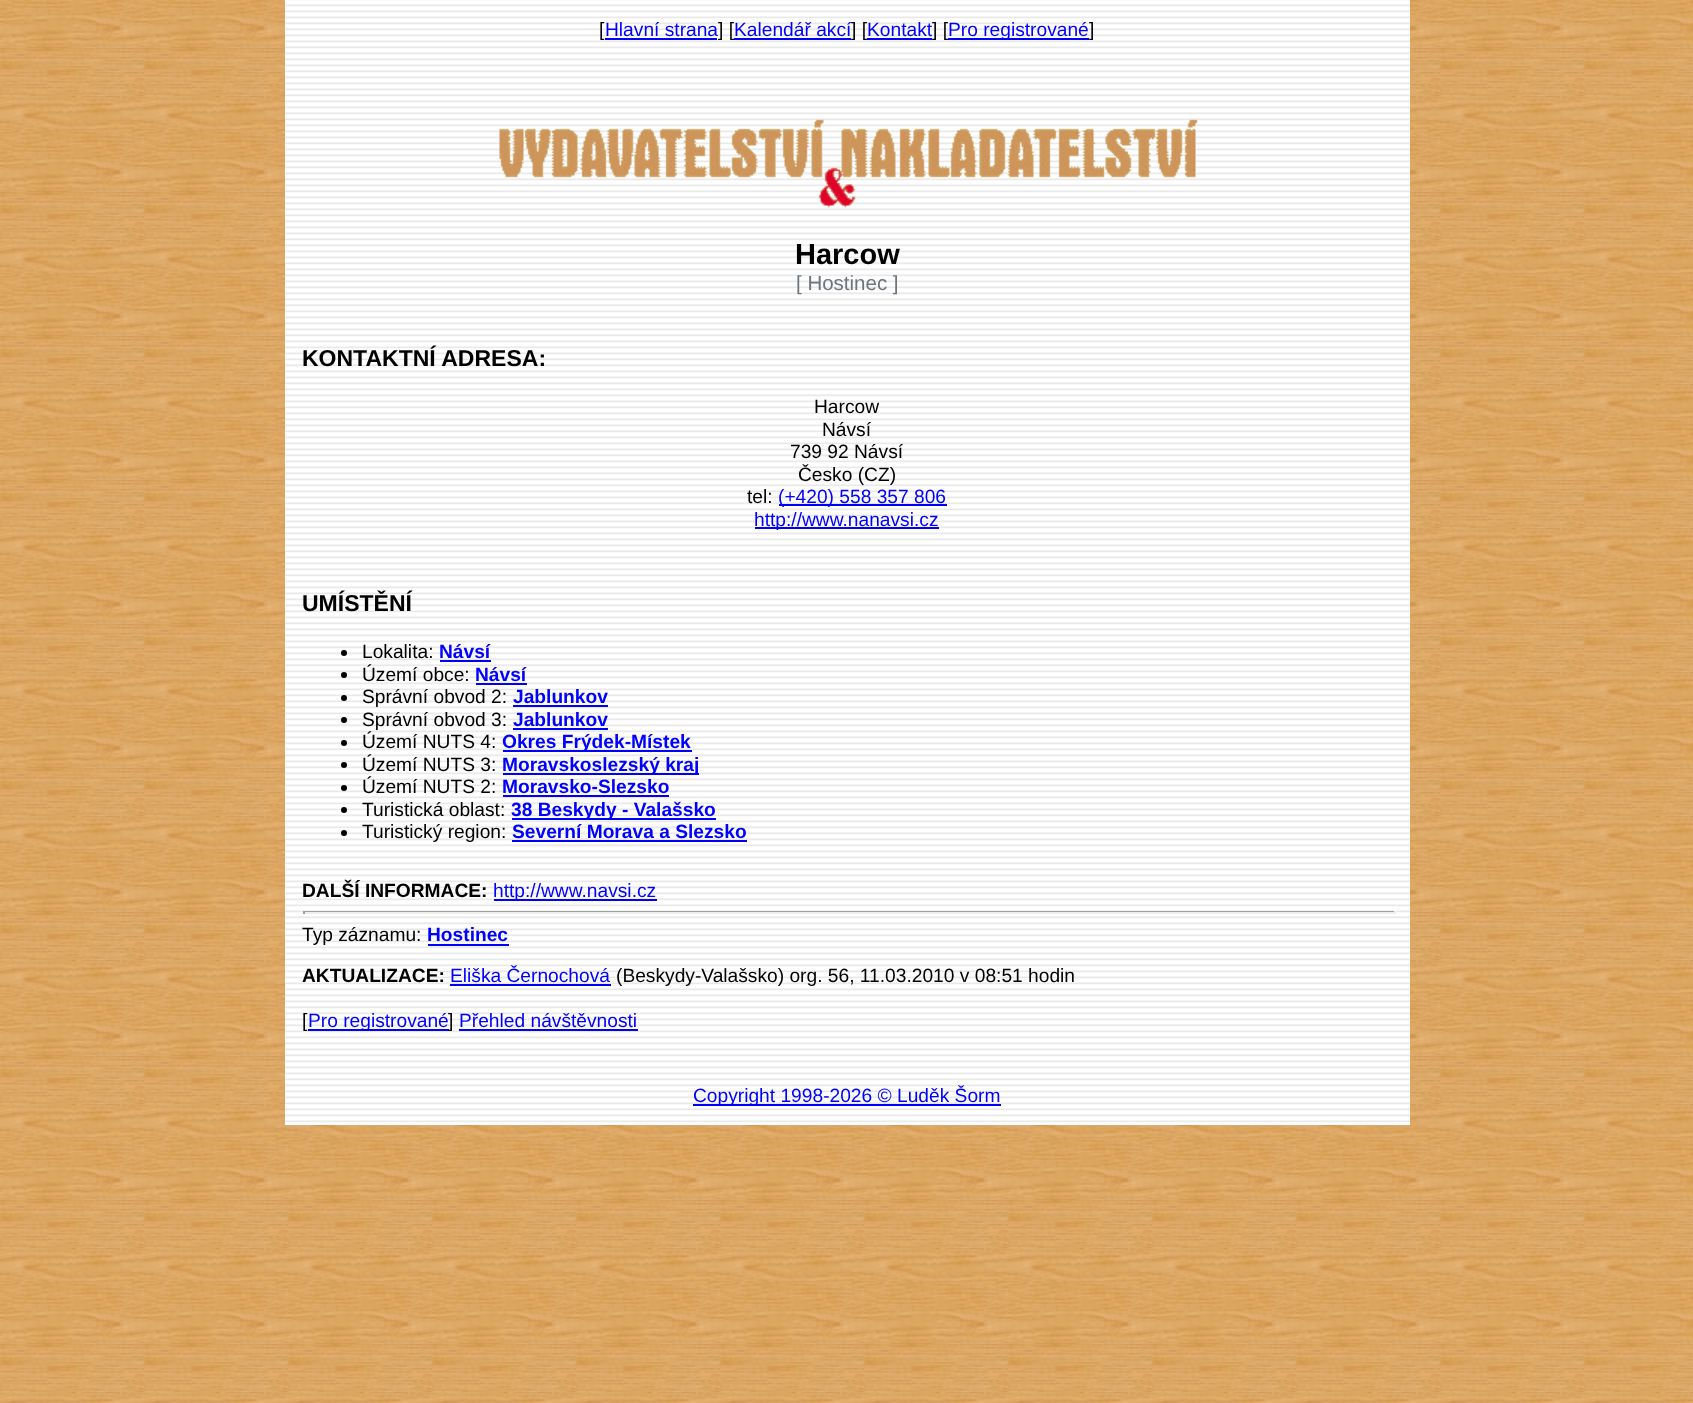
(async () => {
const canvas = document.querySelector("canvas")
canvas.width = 1693
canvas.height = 1403
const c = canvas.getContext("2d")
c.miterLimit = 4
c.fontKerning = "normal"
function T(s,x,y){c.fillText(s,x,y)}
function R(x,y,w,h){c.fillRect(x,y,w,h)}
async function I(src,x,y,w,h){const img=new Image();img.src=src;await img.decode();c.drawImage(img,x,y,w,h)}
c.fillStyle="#fff"
R(0,0,1693,1403)
await I("1.png",0,0,1693,1403)
await I("2.png",285,0,1125,1125)
c.font="19.2px Liberation Sans"
c.fillStyle="#000"
T("[",599,36)
c.fillStyle="#00f"
T("Hlavní strana",605,36)
R(605,38,112,2)
c.fillStyle="#000"
T("] [",718,36)
c.fillStyle="#00f"
T("Kalendář akcí",734,36)
R(734,38,117,2)
c.fillStyle="#000"
T("] [",851,36)
c.fillStyle="#00f"
T("Kontakt",867,36)
R(867,38,65,2)
c.fillStyle="#000"
T("] [",932,36)
c.fillStyle="#00f"
R(948,38,141,2)
T("Pro registrované",948,36)
c.fillStyle="#000"
T("]",1089,36)
await I("3.png",499,119,699,89)
c.font="bold 29px Liberation Sans"
T("Harcow",795,264)
c.font="20.5px Liberation Sans"
c.fillStyle="#6c757d"
T("[ Hostinec ]",796,290)
c.font="bold 23px Liberation Sans"
c.fillStyle="#000"
T("KONTAKTNÍ ADRESA:",302,366)
c.font="19.2px Liberation Sans"
T("Harcow",814,413)
T("Návsí",822,436)
T("739 92 Návsí",790,458)
T("Česko (CZ)",798,481)
T("tel:",747,503)
c.fillStyle="#00f"
R(779,504,168,2)
T("(+420) 558 357 806",778,503)
R(755,527,184,2)
T("http://www.nanavsi.cz",754,526)
c.font="bold 23px Liberation Sans"
c.fillStyle="#000"
T("UMÍSTĚNÍ",302,611)
c.beginPath()
c.arc(344,653,3,0,7)
c.fill()
c.font="19.2px Liberation Sans"
T("Lokalita:",362,658)
c.font="bold 19.2px Liberation Sans"
c.fillStyle="#00f"
T("Návsí",439,658)
R(440,660,51,2)
c.fillStyle="#000"
c.beginPath()
c.arc(344,675,3,0,7)
c.fill()
c.font="19.2px Liberation Sans"
T("Území obce:",362,681)
c.font="bold 19.2px Liberation Sans"
c.fillStyle="#00f"
T("Návsí",475,681)
R(476,683,51,2)
c.fillStyle="#000"
c.beginPath()
c.arc(344,698,3,0,7)
c.fill()
c.font="19.2px Liberation Sans"
T("Správní obvod 2:",362,703)
c.font="bold 19.2px Liberation Sans"
c.fillStyle="#00f"
T("Jablunkov",513,703)
R(513,705,95,2)
c.fillStyle="#000"
c.beginPath()
c.arc(344,720,3,0,7)
c.fill()
c.font="19.2px Liberation Sans"
T("Správní obvod 3:",362,726)
c.font="bold 19.2px Liberation Sans"
c.fillStyle="#00f"
T("Jablunkov",513,726)
R(513,728,95,2)
c.fillStyle="#000"
c.beginPath()
c.arc(344,743,3,0,7)
c.fill()
c.font="19.2px Liberation Sans"
T("Území NUTS 4:",362,748)
c.fillStyle="#00f"
R(503,750,189,2)
c.font="bold 19.2px Liberation Sans"
T("Okres Frýdek-Místek",502,748)
c.fillStyle="#000"
c.beginPath()
c.arc(344,765,3,0,7)
c.fill()
c.font="19.2px Liberation Sans"
T("Území NUTS 3:",362,771)
c.fillStyle="#00f"
R(503,773,196,2)
c.font="bold 19.2px Liberation Sans"
T("Moravskoslezský kraj",502,771)
c.fillStyle="#000"
c.beginPath()
c.arc(344,788,3,0,7)
c.fill()
c.font="19.2px Liberation Sans"
T("Území NUTS 2:",362,793)
c.font="bold 19.2px Liberation Sans"
c.fillStyle="#00f"
T("Moravsko-Slezsko",502,793)
R(503,795,166,2)
c.fillStyle="#000"
c.beginPath()
c.arc(344,810,3,0,7)
c.fill()
c.font="19.2px Liberation Sans"
T("Turistická oblast:",362,816)
c.fillStyle="#00f"
R(512,818,204,2)
c.font="bold 19.2px Liberation Sans"
T("38 Beskydy - Valašsko",511,816)
c.fillStyle="#000"
c.beginPath()
c.arc(344,833,3,0,7)
c.fill()
c.font="19.2px Liberation Sans"
T("Turistický region:",362,838)
c.font="bold 19.2px Liberation Sans"
c.fillStyle="#00f"
T("Severní Morava a Slezsko",512,838)
R(512,840,235,2)
c.fillStyle="#000"
T("DALŠÍ INFORMACE:",302,897)
c.fillStyle="#00f"
R(494,899,163,2)
c.font="19.2px Liberation Sans"
T("http://www.navsi.cz",493,897)
c.fillStyle="#9f9f9f"
R(303,911,1092,1)
c.fillStyle="#eee"
R(1394,911,2,3)
R(303,912,1092,2)
c.fillStyle="#9f9f9f"
R(303,911,2,3)
c.fillStyle="#000"
T("Typ záznamu:",302,941)
c.font="bold 19.2px Liberation Sans"
c.fillStyle="#00f"
T("Hostinec",427,941)
R(428,944,81,2)
c.fillStyle="#000"
T("AKTUALIZACE:",302,982)
c.font="19.2px Liberation Sans"
c.fillStyle="#00f"
T("Eliška Černochová",450,982)
R(450,984,161,2)
c.fillStyle="#000"
T("(Beskydy-Valašsko) org. 56, 11.03.2010 v 08:51 hodin",616,982)
T("[",302,1027)
c.fillStyle="#00f"
R(308,1029,141,2)
T("Pro registrované",308,1027)
c.fillStyle="#000"
T("]",448,1027)
c.fillStyle="#00f"
T("Přehled návštěvnosti",459,1027)
R(459,1029,179,2)
R(693,1104,308,2)
T("Copyright 1998-2026 © Luděk Šorm",693,1102)
})()
